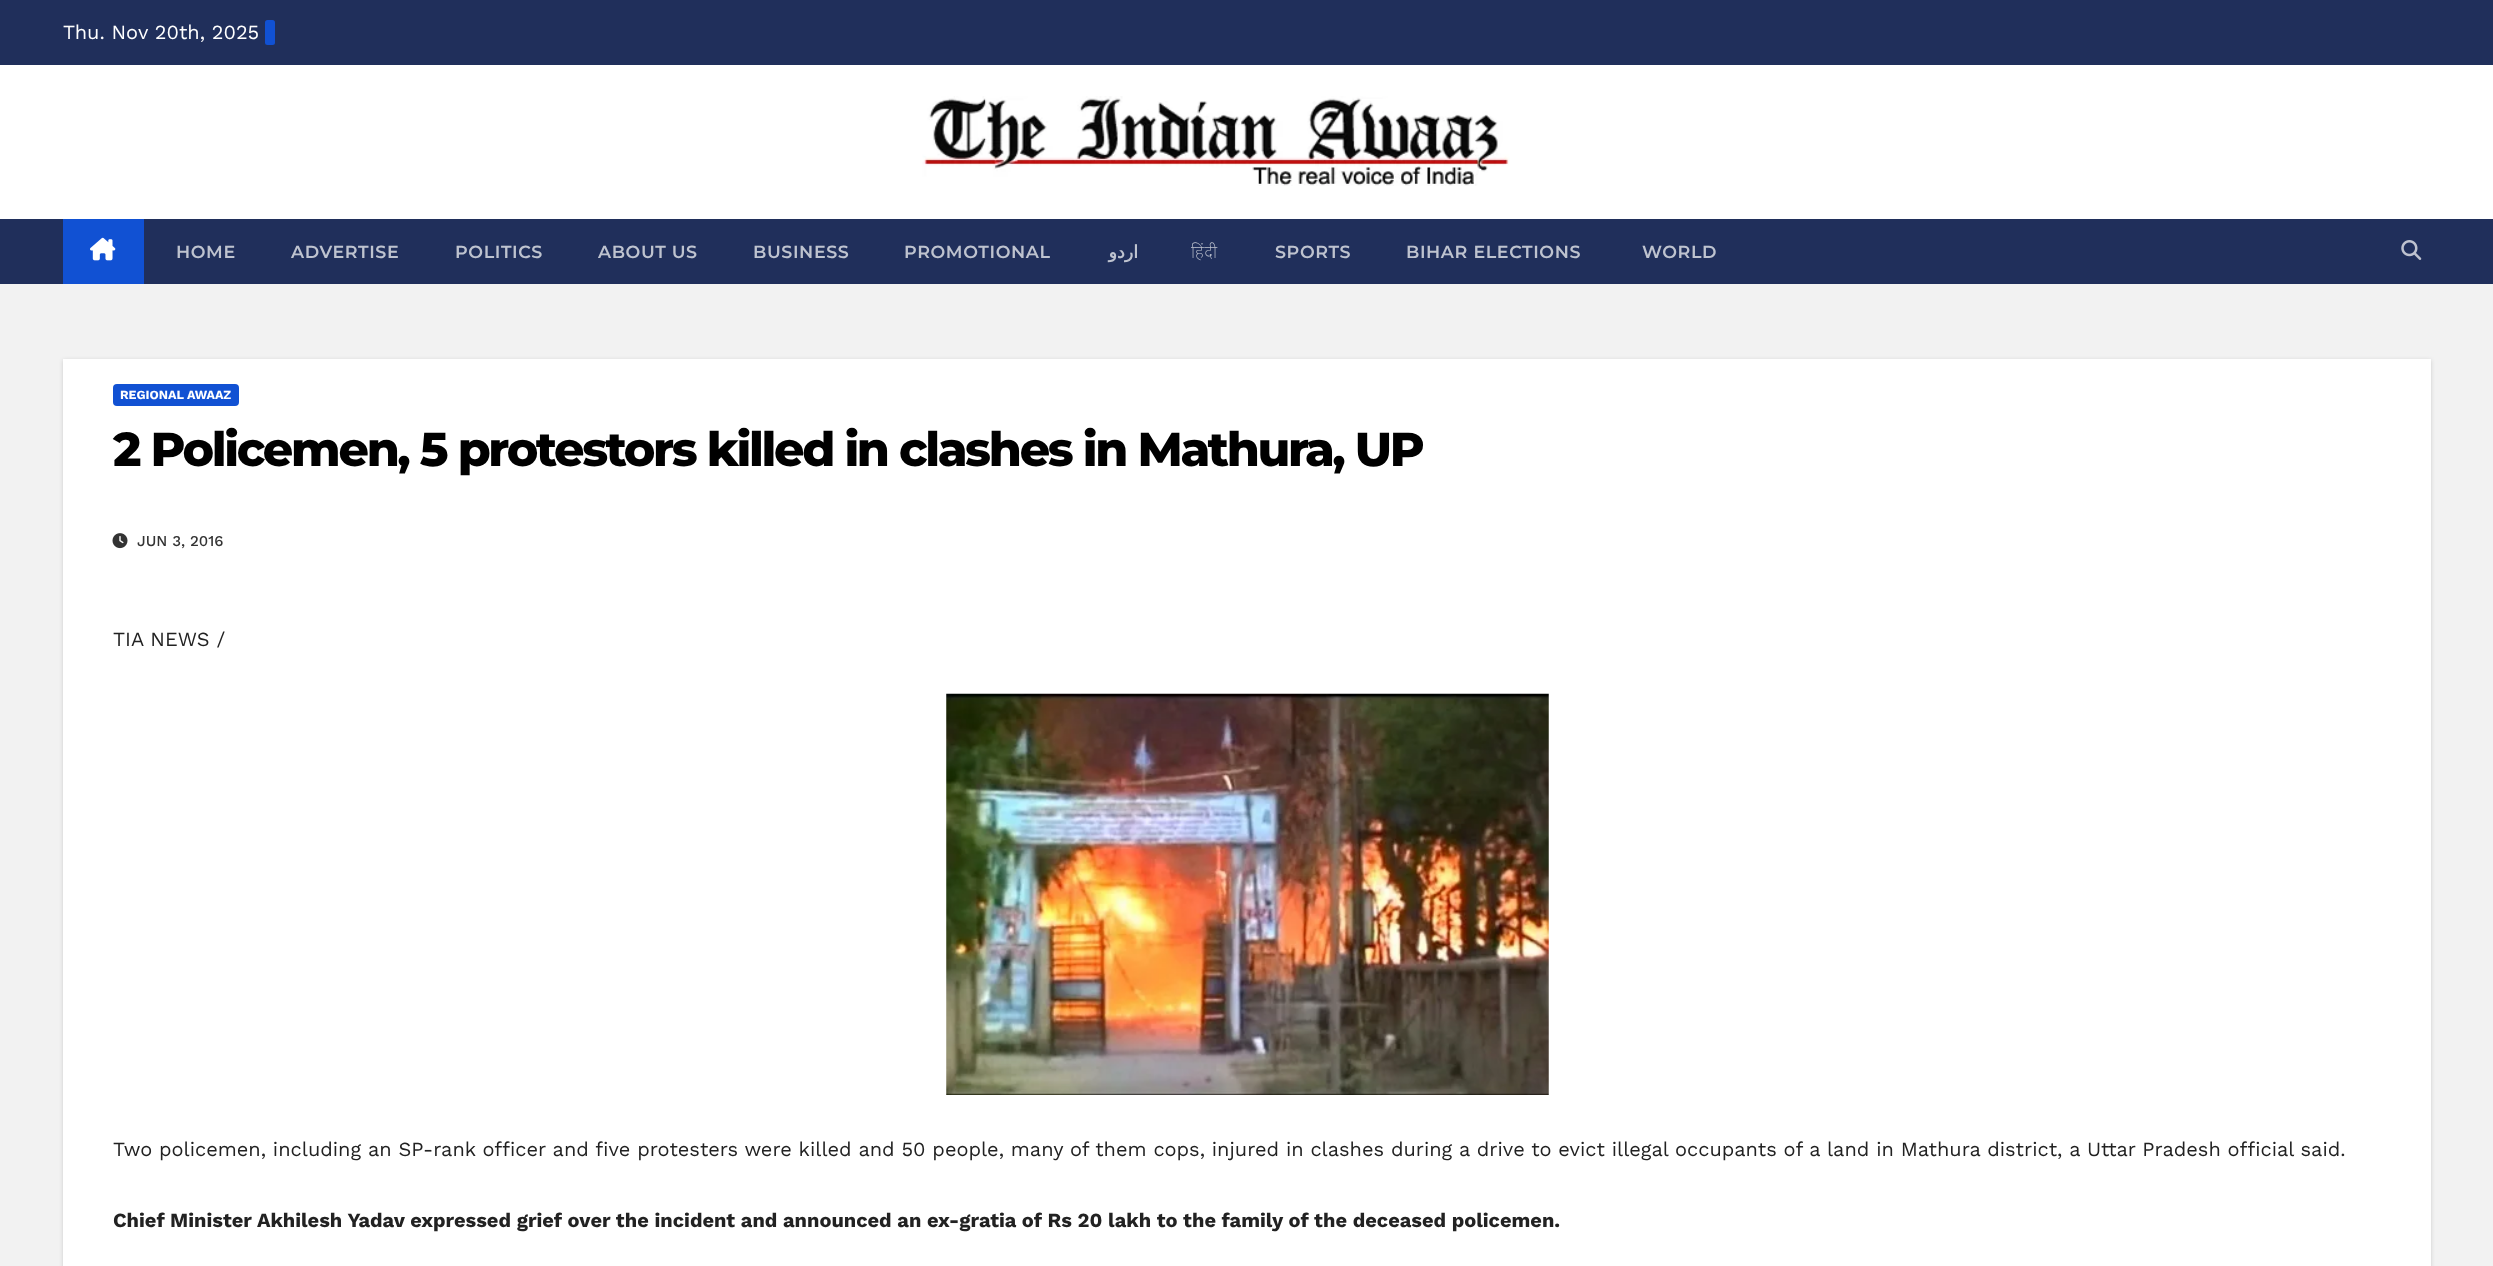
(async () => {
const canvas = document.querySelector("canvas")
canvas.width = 2493
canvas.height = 1266
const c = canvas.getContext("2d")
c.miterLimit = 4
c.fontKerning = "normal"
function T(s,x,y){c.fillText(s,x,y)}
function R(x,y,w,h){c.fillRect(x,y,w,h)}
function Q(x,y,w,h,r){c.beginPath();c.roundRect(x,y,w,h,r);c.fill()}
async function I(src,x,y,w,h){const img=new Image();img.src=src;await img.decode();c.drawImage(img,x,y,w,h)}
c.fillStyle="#f2f2f2"
R(0,0,2493,1266)
c.fillStyle="#202f5b"
R(0,0,2493,65)
c.font="20px Work Sans"
c.fillStyle="#fff"
T("Thu. Nov 20th, 2025",63,39)
c.fillStyle="#1151d3"
Q(265,20,10,25,2.5)
c.fillStyle="#fff"
R(0,65,2493,154)
await I("1.png",922,96,588,90)
c.fillStyle="#202f5b"
R(0,219,2493,65)
c.fillStyle="#1151d3"
R(63,219,81,65)
await I("2.png",90,237,26,24)
c.letterSpacing="0.6px"
c.font="600 17.5px Montserrat"
c.fillStyle="#bec3cf"
T("HOME",176,258)
T("ADVERTISE",291,258)
T("POLITICS",455,258)
T("ABOUT US",598,258)
T("BUSINESS",753,258)
T("PROMOTIONAL",904,258)
c.direction="rtl"
c.font="bold 17.5px DejaVu Sans"
T("اردو",1138,258)
c.direction="ltr"
c.font="200 17.5px Noto Sans"
T("हिंदी",1191,258)
c.font="600 17.5px Montserrat"
T("SPORTS",1275,258)
T("BIHAR ELECTIONS",1406,258)
T("WORLD",1642,258)
await I("3.png",2401,240,21,20)
c.fillStyle="#00000026"
c.filter="blur(2px)"
c.beginPath()
c.rect(63,360,2368,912)
c.fill()
c.filter="none"
c.fillStyle="#fff"
R(63,359,2368,907)
c.fillStyle="#1151d3"
Q(113,384,126,22,4)
c.letterSpacing="0px"
c.font="bold 12.5px Work Sans"
c.fillStyle="#fff"
T("REGIONAL AWAAZ",120,399)
c.letterSpacing="-2.38px"
c.font="800 47.5px Montserrat"
c.fillStyle="#000"
T("2 Policemen, 5 protestors killed in clashes in Mathura, UP",113,466)
await I("4.png",112,533,16,16)
c.letterSpacing="0px"
c.font="500 15px Work Sans"
c.fillStyle="#333"
T("JUN 3, 2016",137,546)
c.font="20px Work Sans"
c.fillStyle="#222"
T("TIA NEWS /",113,646)
await I("5.png",946,693,603,402)
T("Two policemen, including an SP-rank officer and five protesters were killed and 50 people, many of them cops, injured in clashes during a drive to evict illegal occupants of a land in Mathura district, a Uttar Pradesh official said.",113,1156)
c.font="bold 20px Work Sans"
T("Chief Minister Akhilesh Yadav expressed grief over the incident and announced an ex-gratia of Rs 20 lakh to the family of the deceased policemen.",113,1227)
})()
